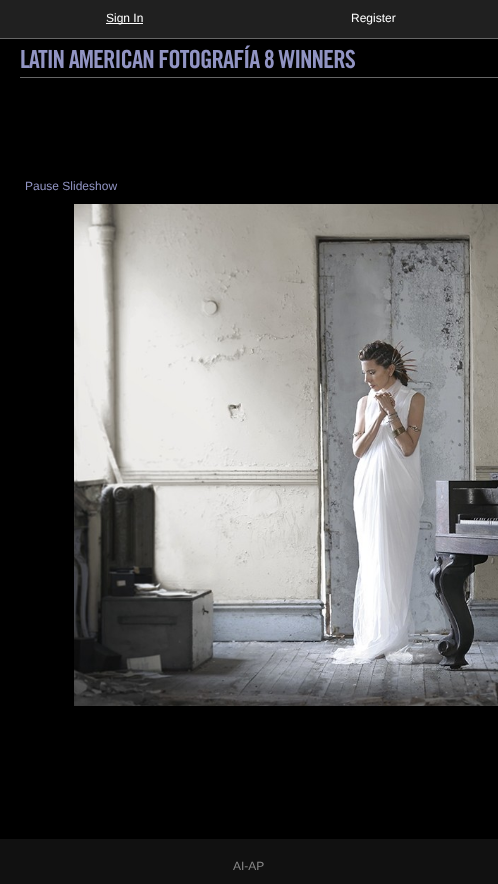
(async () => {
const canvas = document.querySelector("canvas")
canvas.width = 498
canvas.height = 884
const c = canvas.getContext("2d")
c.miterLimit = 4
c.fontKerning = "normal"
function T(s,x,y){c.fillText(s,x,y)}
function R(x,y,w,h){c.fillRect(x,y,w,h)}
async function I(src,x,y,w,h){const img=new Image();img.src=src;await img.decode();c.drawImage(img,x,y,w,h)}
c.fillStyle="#111"
R(0,0,498,884)
c.fillStyle="#202020"
R(0,0,498,38)
c.fillStyle="#fff"
R(106,23,37,1)
c.font="12px Liberation Sans"
T("Sign In",106,22)
T("Register",351,22)
c.fillStyle="#666"
R(0,38,498,1)
c.fillStyle="#000"
R(0,39,498,800)
c.fillStyle="#666"
R(20,77,478,1)
c.letterSpacing="-1px"
c.font="bold 25px 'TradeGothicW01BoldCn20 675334'"
c.fillStyle="#9194c3"
T("LATIN AMERICAN FOTOGRAFÍA 8 WINNERS",20,68)
c.letterSpacing="0px"
c.font="12px Liberation Sans"
T("Pause Slideshow",25,190)
await I("1.png",74,204,424,502)
c.fillStyle="#888"
T("AI-AP",233,870)
})()
